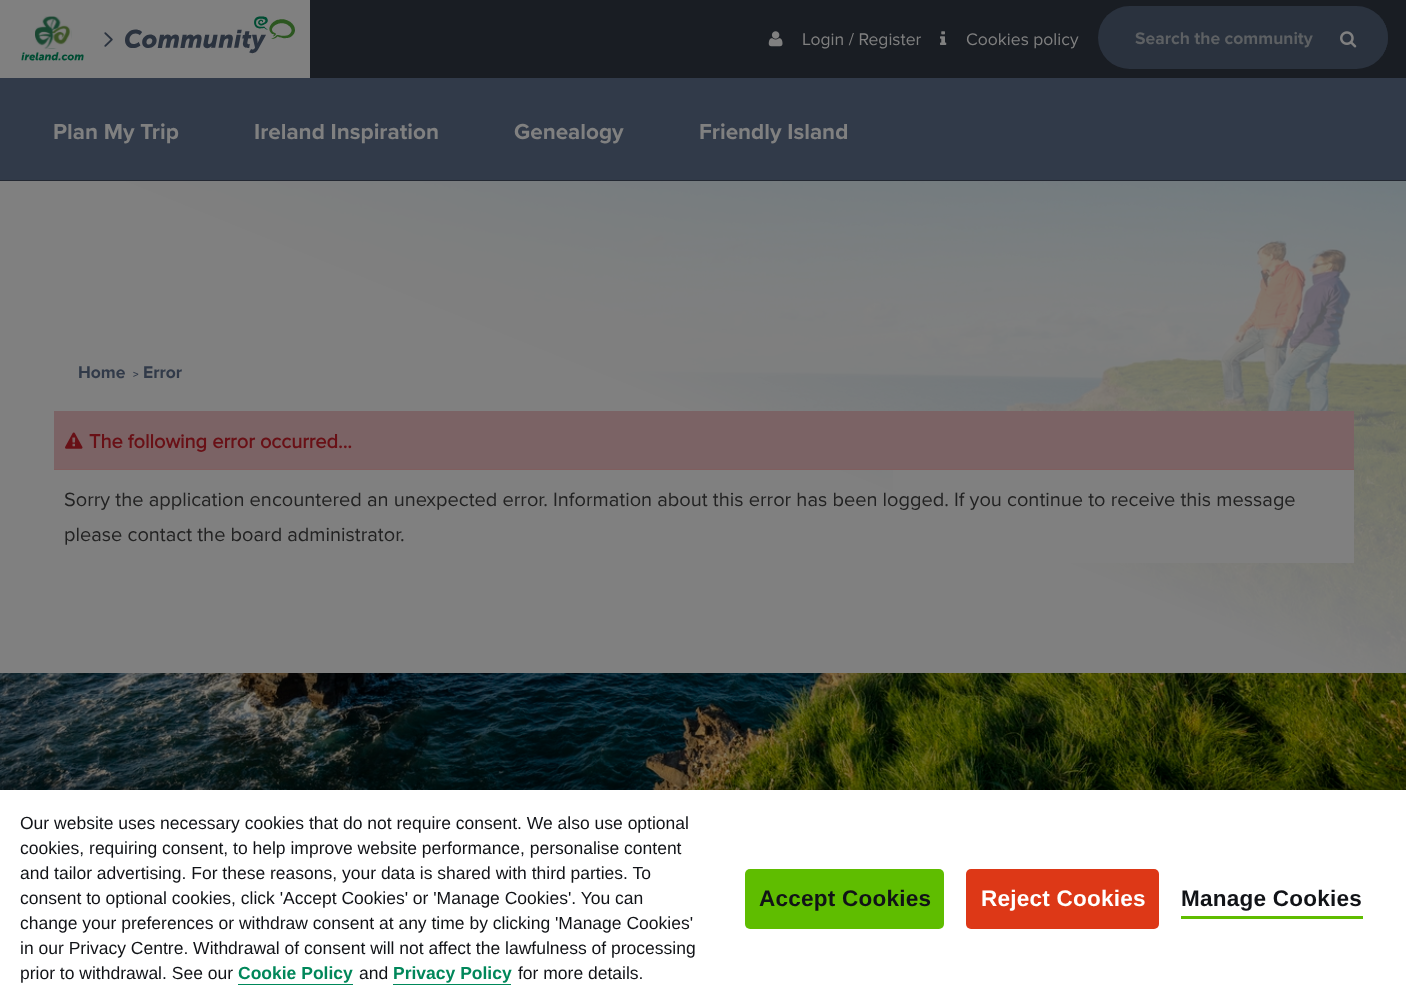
(async () => {
const canvas = document.querySelector("canvas")
canvas.width = 1406
canvas.height = 1005
const c = canvas.getContext("2d")
c.miterLimit = 4
c.fontKerning = "normal"
function T(s,x,y){c.fillText(s,x,y)}
function R(x,y,w,h){c.fillRect(x,y,w,h)}
function Q(x,y,w,h,r){c.beginPath();c.roundRect(x,y,w,h,r);c.fill()}
async function I(src,x,y,w,h){const img=new Image();img.src=src;await img.decode();c.drawImage(img,x,y,w,h)}
c.fillStyle="#fff"
R(0,0,1406,1005)
await I("1.png",0,181,1406,609)
c.fillStyle="#191d23"
R(310,0,1096,78)
c.fillStyle="#808080"
R(0,0,310,78)
await I("2.png",21,16,63,45)
await I("3.png",104,32,9,15)
await I("4.png",125,16,170,38)
await I("5.png",768,31,15,16)
c.font="17.5px 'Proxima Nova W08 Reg'"
T("Login / Register",802,45)
await I("6.png",940,31,7,14)
T("Cookies policy",966,45)
c.fillStyle="#2a323e"
Q(1098,6,290,63,31.5)
c.save()
c.beginPath()
c.roundRect(1098,6,290,63,31.5)
c.clip()
R(1123,19,265,37)
c.restore()
c.font="bold 17.5px 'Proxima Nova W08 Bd'"
c.fillStyle="#5d6063"
T("Search the community",1135,44)
await I("7.png",1340,31,17,17)
c.fillStyle="#313a49"
R(0,78,1406,102)
c.fillStyle="#232832"
R(0,180,1406,1)
c.font="bold 22.5px 'Proxima Nova W08 Bd'"
c.fillStyle="#808080"
T("Plan My Trip",53,139)
T("Ireland Inspiration",254,139)
T("Genealogy",514,139)
T("Friendly Island",699,139)
c.font="bold 17.5px 'Proxima Nova W08 Bd'"
c.fillStyle="#313a49"
T("Home",78,378)
c.font="bold 11px 'Proxima Nova W08 Bd'"
T(">",133,378)
c.font="bold 17.5px 'Proxima Nova W08 Bd'"
T("Error",143,378)
c.fillStyle="#7b6365"
R(54,411,1300,58)
c.fillStyle="#805e5e"
R(54,469,1300,1)
await I("8.png",65,432,18,17)
c.font="bold 20px 'Proxima Nova W08 Reg'"
c.fillStyle="#691016"
T("The following error occurred...",89,448)
c.fillStyle="#808080"
R(893,470,461,93)
c.font="20px 'Proxima Nova W08 Reg'"
c.fillStyle="#222"
T("Sorry the application encountered an unexpected error. Information about this error has been logged. If you continue to receive this message",64,506)
T("please contact the board administrator.",64,541)
c.fillStyle="#00000033"
c.filter="blur(11px)"
c.beginPath()
c.rect(0,790,1406,215)
c.fill()
c.filter="none"
c.fillStyle="#fff"
R(0,790,1406,215)
c.font="17.5px Liberation Sans"
c.fillStyle="#111317"
T("Our website uses necessary cookies that do not require consent. We also use optional",20,829)
T("cookies, requiring consent, to help improve website performance, personalise content",20,854)
T("and tailor advertising. For these reasons, your data is shared with third parties. To",20,879)
T("consent to optional cookies, click 'Accept Cookies' or 'Manage Cookies'. You can",20,904)
T("change your preferences or withdraw consent at any time by clicking 'Manage Cookies'",20,929)
T("in our Privacy Centre. Withdrawal of consent will not affect the lawfulness of processing",20,954)
T("prior to withdrawal. See our",20,979)
c.font="bold 17.5px Liberation Sans"
c.fillStyle="#00875a"
T("Cookie Policy",238,979)
R(238,984,115,1)
c.font="17.5px Liberation Sans"
c.fillStyle="#111317"
T("and",359,979)
c.font="bold 17.5px Liberation Sans"
c.fillStyle="#00875a"
T("Privacy Policy",393,979)
R(393,984,118,1)
c.font="17.5px Liberation Sans"
c.fillStyle="#111317"
T("for more details.",518,979)
c.fillStyle="#5fbd00"
Q(745,869,199,60,5)
c.letterSpacing="0.25px"
c.font="bold 22.5px Liberation Sans"
c.fillStyle="#111317"
T("Accept Cookies",759,906)
c.fillStyle="#dd3817"
Q(966,869,193,60,5)
c.fillStyle="#fff"
T("Reject Cookies",981,906)
c.fillStyle="#111317"
T("Manage Cookies",1181,906)
c.fillStyle="#5fbd00"
R(1181,916,182,3)
})()
